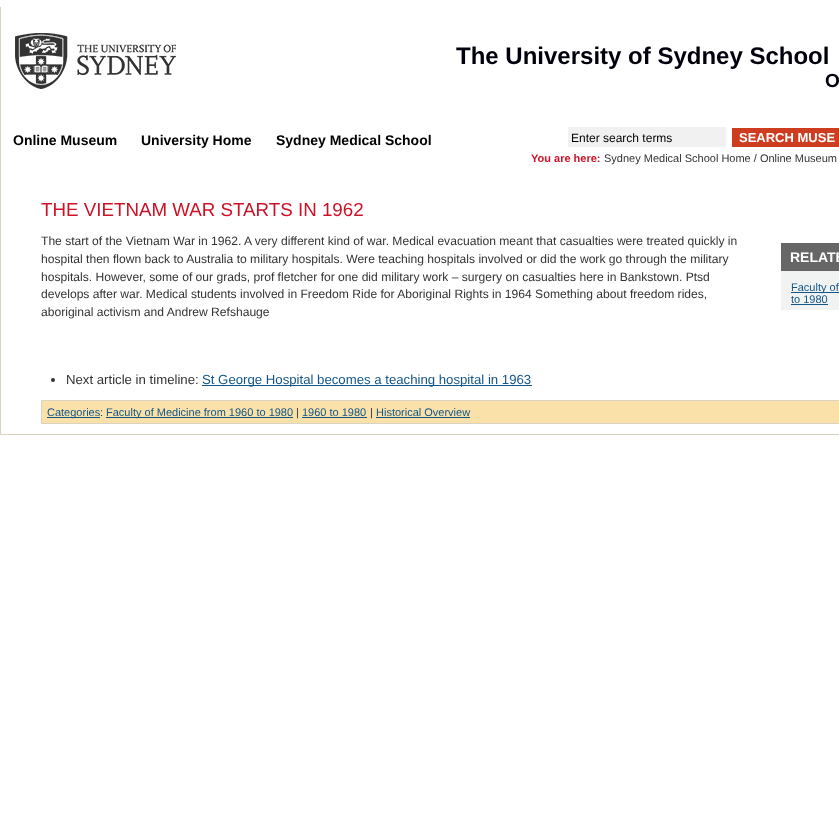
(async () => {
const canvas = document.querySelector("canvas")
canvas.width = 839
canvas.height = 826
const c = canvas.getContext("2d")
c.miterLimit = 4
c.fontKerning = "normal"
function T(s,x,y){c.fillText(s,x,y)}
function R(x,y,w,h){c.fillRect(x,y,w,h)}
async function I(src,x,y,w,h){const img=new Image();img.src=src;await img.decode();c.drawImage(img,x,y,w,h)}
c.fillStyle="#fff"
R(0,0,839,826)
c.fillStyle="#dbd3c2"
R(0,434,839,1)
R(0,7,1,428)
await I("1.png",15,33,161,56)
c.font="bold 24px Liberation Sans"
c.fillStyle="#00000d"
T("The University of Sydney School",456,64)
c.font="bold 19px Liberation Sans"
T("O",825,87)
c.font="bold 14px Liberation Sans"
c.fillStyle="#000"
T("Online Museum",13,145)
T("University Home",141,145)
T("Sydney Medical School",276,145)
c.fillStyle="#f1f1f1"
R(568,127,158,20)
c.font="12px Liberation Sans"
c.fillStyle="#000"
T("Enter search terms",571,142)
c.fillStyle="#ce3d20"
R(732,128,107,19)
c.font="bold 13px Liberation Sans"
c.fillStyle="#fff"
T("SEARCH MUSE",739,142)
c.font="bold 11px Liberation Sans"
c.fillStyle="#ce1126"
T("You are here:",531,162)
c.font="11px Liberation Sans"
c.fillStyle="#333"
T("Sydney Medical School Home / Online Museum",604,162)
c.font="18.75px Liberation Sans"
c.fillStyle="#ce1126"
T("THE VIETNAM WAR STARTS IN 1962",41,216)
c.font="12.1px Liberation Sans"
c.fillStyle="#333"
T("The start of the Vietnam War in 1962. A very different kind of war. Medical evacuation meant that casualties were treated quickly in",41,245)
T("hospital then flown back to Australia to military hospitals. Were teaching hospitals involved or did the work go through the military",41,263)
T("hospitals. However, some of our grads, prof fletcher for one did military work – surgery on casualties here in Bankstown. Ptsd",41,281)
T("develops after war. Medical students involved in Freedom Ride for Aboriginal Rights in 1964 Something about freedom rides,",41,298)
T("aboriginal activism and Andrew Refshauge",41,316)
c.fillStyle="#f1f2f2"
R(781,271,58,39)
c.fillStyle="#666"
R(781,243,58,28)
c.font="bold 14px Liberation Sans"
c.fillStyle="#fff"
T("RELATE",790,262)
c.fillStyle="#125687"
R(791,292,48,1)
c.font="11px Liberation Sans"
T("Faculty of",791,291)
T("to 1980",791,303)
R(791,304,37,1)
c.fillStyle="#333"
c.beginPath()
c.arc(53,380,2,0,7)
c.fill()
c.font="13.2px Liberation Sans"
T("Next article in timeline:",66,384)
c.fillStyle="#125687"
R(202,385,330,1)
T("St George Hospital becomes a teaching hospital in 1963",202,384)
c.fillStyle="#fae0a9"
c.beginPath()
c.rect(41.5,400.5,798,23)
c.fill()
c.strokeStyle="#dbd3c2"
c.stroke()
c.fillStyle="#125687"
R(47,417,53,1)
c.font="11px Liberation Sans"
T("Categories",47,416)
c.fillStyle="#333"
T(":",100,416)
c.fillStyle="#125687"
R(106,417,187,1)
T("Faculty of Medicine from 1960 to 1980",106,416)
c.fillStyle="#333"
T("|",296,416)
c.fillStyle="#125687"
T("1960 to 1980",302,416)
R(302,417,65,1)
c.fillStyle="#333"
T("|",370,416)
c.fillStyle="#125687"
T("Historical Overview",376,416)
R(376,417,94,1)
})()
